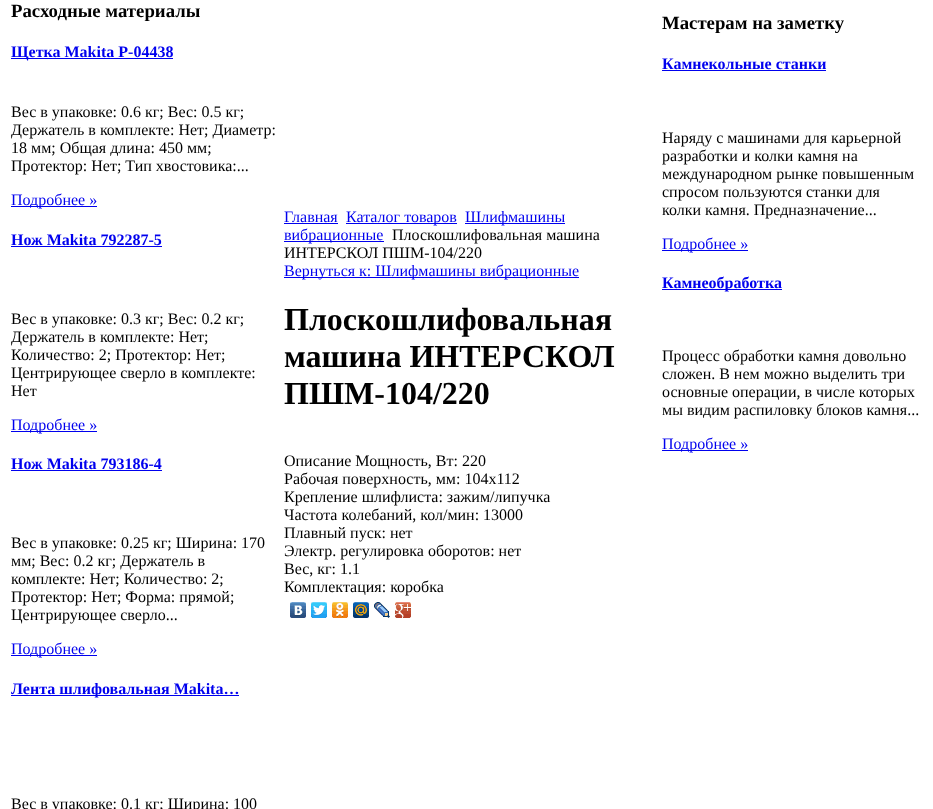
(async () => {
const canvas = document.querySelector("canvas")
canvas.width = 933
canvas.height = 809
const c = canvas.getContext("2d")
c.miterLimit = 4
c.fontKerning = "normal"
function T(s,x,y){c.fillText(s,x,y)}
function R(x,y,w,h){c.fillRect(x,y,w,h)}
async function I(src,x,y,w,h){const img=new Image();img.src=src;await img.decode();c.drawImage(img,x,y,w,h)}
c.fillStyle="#fff"
R(0,0,933,809)
c.font="bold 18.75px Liberation Serif"
c.fillStyle="#000"
T("Расходные материалы",11,17)
c.fillStyle="#00e"
R(11,58,162,1)
c.font="bold 16px Liberation Serif"
T("Щетка Makita P-04438",11,57)
c.font="16px Liberation Serif"
c.fillStyle="#000"
T("Вес в упаковке: 0.6 кг; Вес: 0.5 кг;",11,117)
T("Держатель в комплекте: Нет; Диаметр:",11,135)
T("18 мм; Общая длина: 450 мм;",11,153)
T("Протектор: Нет; Тип хвостовика:...",11,171)
c.fillStyle="#00e"
R(11,206,86,1)
T("Подробнее »",11,205)
c.font="bold 16px Liberation Serif"
T("Нож Makita 792287-5",11,245)
R(11,246,151,1)
c.font="16px Liberation Serif"
c.fillStyle="#000"
T("Вес в упаковке: 0.3 кг; Вес: 0.2 кг;",11,324)
T("Держатель в комплекте: Нет;",11,342)
T("Количество: 2; Протектор: Нет;",11,360)
T("Центрирующее сверло в комплекте:",11,378)
T("Нет",11,396)
c.fillStyle="#00e"
R(11,431,86,1)
T("Подробнее »",11,430)
c.font="bold 16px Liberation Serif"
T("Нож Makita 793186-4",11,469)
R(11,470,151,1)
c.font="16px Liberation Serif"
c.fillStyle="#000"
T("Вес в упаковке: 0.25 кг; Ширина: 170",11,548)
T("мм; Вес: 0.2 кг; Держатель в",11,566)
T("комплекте: Нет; Количество: 2;",11,584)
T("Протектор: Нет; Форма: прямой;",11,602)
T("Центрирующее сверло...",11,620)
c.fillStyle="#00e"
R(11,655,86,1)
T("Подробнее »",11,654)
R(11,695,228,1)
c.font="bold 16px Liberation Serif"
T("Лента шлифовальная Makita…",11,694)
c.font="16px Liberation Serif"
c.fillStyle="#000"
T("Вес в упаковке: 0.1 кг; Ширина: 100",11,809)
c.fillStyle="#00e"
T("Главная",284,222)
R(284,223,54,1)
R(346,223,111,1)
T("Каталог товаров",346,222)
R(465,223,100,1)
T("Шлифмашины",465,222)
R(284,241,100,1)
T("вибрационные",284,240)
c.fillStyle="#000"
T("Плоскошлифовальная машина",392,240)
T("ИНТЕРСКОЛ ПШМ-104/220",284,258)
c.fillStyle="#00e"
R(284,277,295,1)
T("Вернуться к: Шлифмашины вибрационные",284,276)
c.font="bold 32px Liberation Serif"
c.fillStyle="#000"
T("Плоскошлифовальная",284,330)
T("машина ИНТЕРСКОЛ",284,367)
T("ПШМ-104/220",284,404)
c.font="16px Liberation Serif"
T("Описание Мощность, Вт: 220",284,466)
T("Рабочая поверхность, мм: 104x112",284,484)
T("Крепление шлифлиста: зажим/липучка",284,502)
T("Частота колебаний, кол/мин: 13000",284,520)
T("Плавный пуск: нет",284,538)
T("Электр. регулировка оборотов: нет",284,556)
T("Вес, кг: 1.1",284,574)
T("Комплектация: коробка",284,592)
await I("1.png",290,602,16,16)
await I("2.png",311,602,16,16)
await I("3.png",332,602,16,16)
await I("4.png",353,602,16,16)
await I("5.png",374,602,16,16)
await I("6.png",395,602,16,16)
c.font="bold 18.75px Liberation Serif"
T("Мастерам на заметку",662,29)
c.font="bold 16px Liberation Serif"
c.fillStyle="#00e"
T("Камнекольные станки",662,69)
R(662,70,164,1)
c.font="16px Liberation Serif"
c.fillStyle="#000"
T("Наряду с машинами для карьерной",662,143)
T("разработки и колки камня на",662,161)
T("международном рынке повышенным",662,179)
T("спросом пользуются станки для",662,197)
T("колки камня. Предназначение...",662,215)
c.fillStyle="#00e"
R(662,250,86,1)
T("Подробнее »",662,249)
R(662,289,120,1)
c.font="bold 16px Liberation Serif"
T("Камнеобработка",662,288)
c.font="16px Liberation Serif"
c.fillStyle="#000"
T("Процесс обработки камня довольно",662,361)
T("сложен. В нем можно выделить три",662,379)
T("основные операции, в числе которых",662,397)
T("мы видим распиловку блоков камня...",662,415)
c.fillStyle="#00e"
R(662,450,86,1)
T("Подробнее »",662,449)
})()
